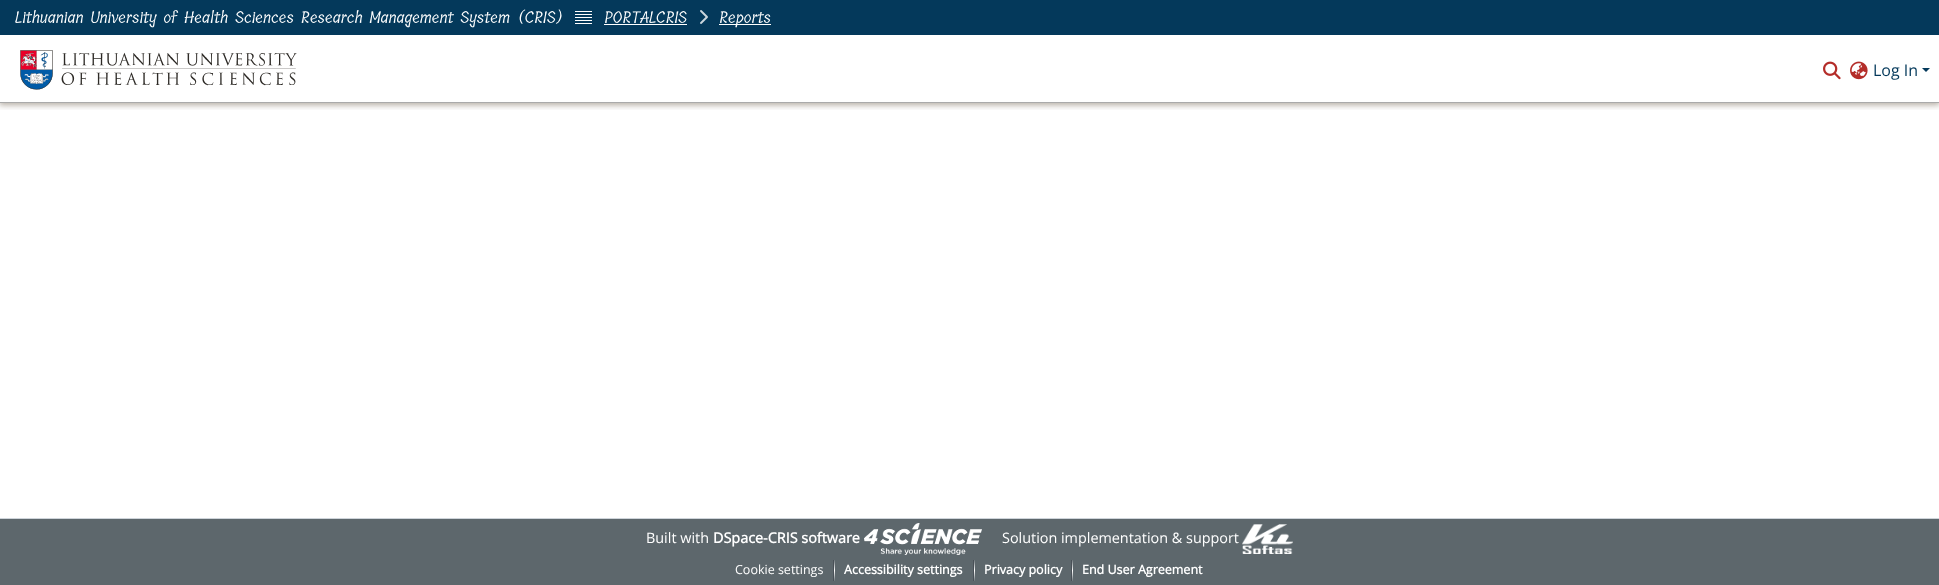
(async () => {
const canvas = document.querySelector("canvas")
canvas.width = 1939
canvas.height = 585
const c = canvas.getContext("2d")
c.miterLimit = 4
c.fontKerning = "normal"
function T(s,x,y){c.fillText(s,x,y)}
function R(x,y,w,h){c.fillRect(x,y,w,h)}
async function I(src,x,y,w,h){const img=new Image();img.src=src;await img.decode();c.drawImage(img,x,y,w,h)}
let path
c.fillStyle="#fff"
R(0,0,1939,585)
c.save()
c.beginPath()
c.rect(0,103,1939,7)
c.clip()
c.fillStyle="#68574480"
c.filter="blur(3px)"
c.beginPath()
c.rect(-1,0,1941,105)
c.fill()
c.filter="none"
c.restore()
c.fillStyle="#aaa"
R(0,102,1939,1)
c.fillStyle="#04395b"
R(0,0,1939,35)
c.font="16px Tillana"
c.fillStyle="#fff"
T("Lithuanian University of Health Sciences Research Management System (CRIS)",15,23)
R(575,11,17,1)
R(575,14,17,1)
R(575,17,17,1)
R(575,20,17,1)
R(575,23,17,1)
T("PORTALCRIS",604,23)
R(604,24,83,1)
await I("1.png",700,10,8,14)
R(719,24,52,1)
T("Reports",719,23)
await I("2.png",20,50,277,40)
await I("3.png",1823,61,18,19)
await I("4.png",1850,61,18,19)
c.font="16px Open Sans"
c.fillStyle="#04395b"
T("Log In",1873,76)
path = new Path2D("M1922 68h8l-4 4z")
c.fill(path)
c.fillStyle="#5d676c"
R(0,519,1939,66)
c.fillStyle="#ced4da"
R(0,518,1939,1)
c.font="14.4px Open Sans"
c.fillStyle="#fff"
T("Built with",646,543)
c.font="bold 14.4px Open Sans"
T("DSpace-CRIS software",713,543)
await I("5.png",864,523,118,32)
c.font="14.4px Open Sans"
T("Solution implementation & support",1002,543)
await I("6.png",1242,524,51,30)
await I("7.png",834,560,1,21)
c.font="12.5px Open Sans"
T("Cookie settings",735,574)
c.fillStyle="#495057"
R(833,560,1,21)
await I("7.png",974,560,1,21)
c.font="bold 12.5px Open Sans"
c.fillStyle="#fff"
T("Accessibility settings",844,574)
c.fillStyle="#495057"
R(973,560,1,21)
await I("7.png",1072,560,1,21)
c.fillStyle="#fff"
T("Privacy policy",984,574)
c.fillStyle="#495057"
R(1071,560,1,21)
c.fillStyle="#fff"
T("End User Agreement",1082,574)
})()
